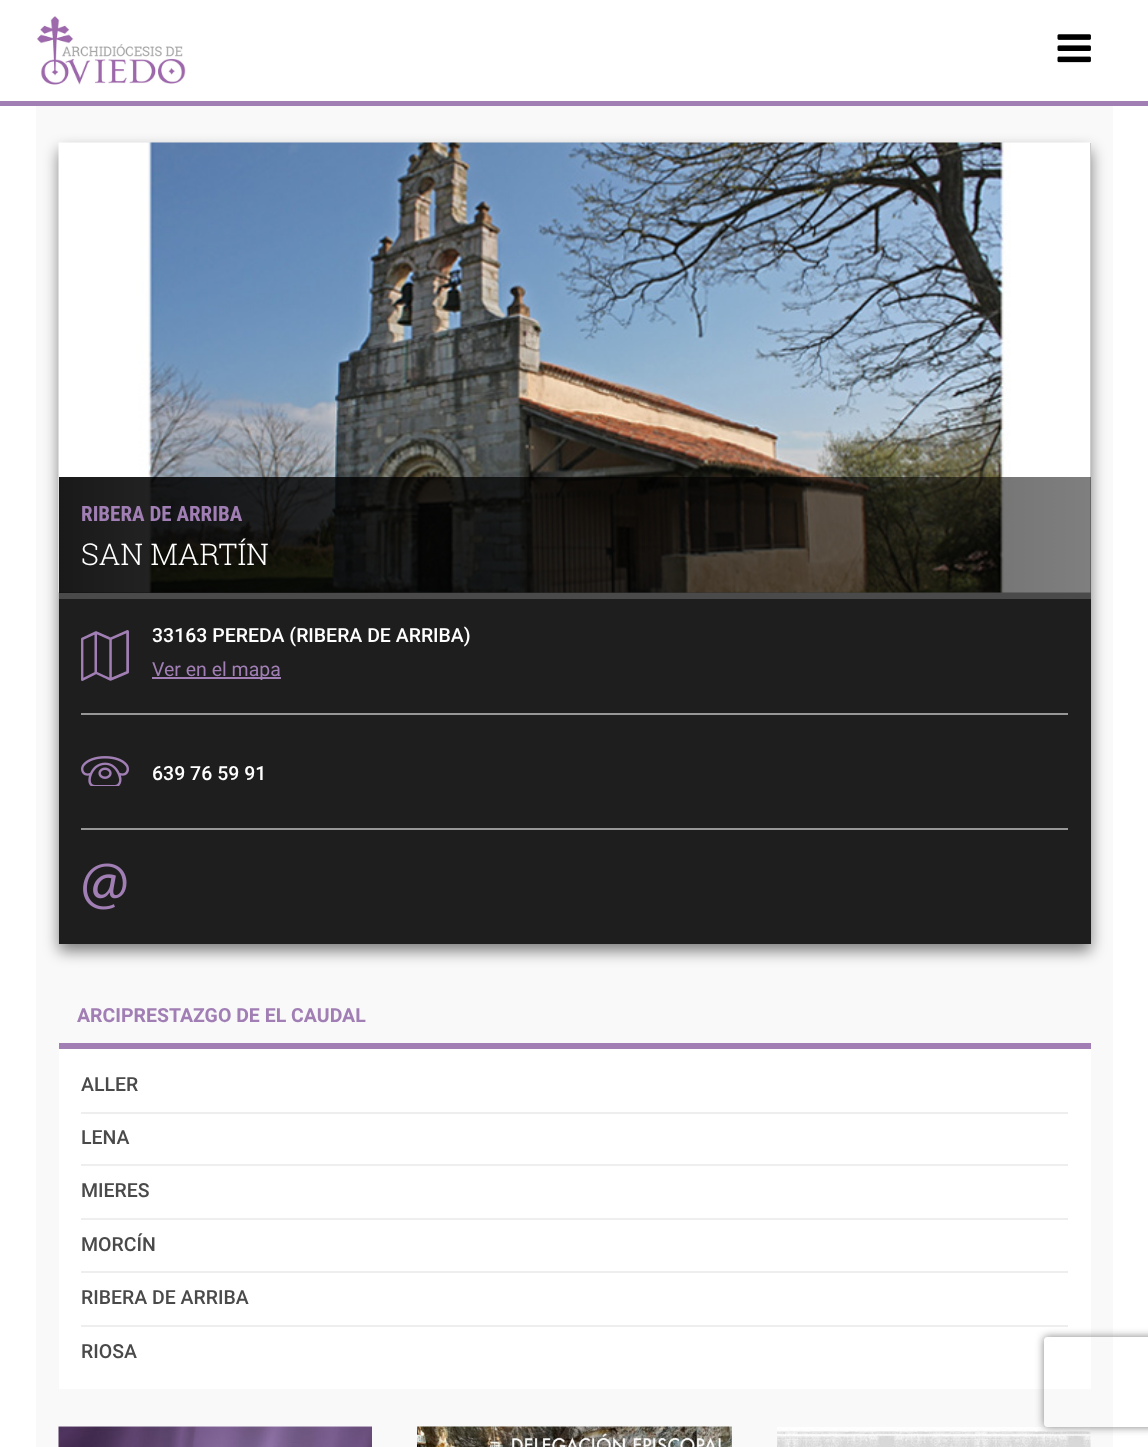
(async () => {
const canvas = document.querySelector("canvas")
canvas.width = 1148
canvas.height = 1447
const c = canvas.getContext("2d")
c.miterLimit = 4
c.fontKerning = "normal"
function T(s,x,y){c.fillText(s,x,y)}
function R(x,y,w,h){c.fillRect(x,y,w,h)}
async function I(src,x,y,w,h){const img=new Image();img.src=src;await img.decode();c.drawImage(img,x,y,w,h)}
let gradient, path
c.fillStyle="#fff"
R(0,0,1148,1447)
c.fillStyle="#a17fb5"
R(0,101,1148,5)
await I("1.png",36,16,150,69)
await I("2.png",1057,34,34,29)
c.fillStyle="#f9f9f9"
R(36,106,1077,1341)
c.fillStyle="#00000080"
c.filter="blur(7.5px)"
c.beginPath()
c.rect(59,150,1032,801)
c.fill()
c.filter="none"
c.fillStyle="#999"
R(59,143,1032,450)
await I("3.png",58,142,1033,451)
gradient = c.createLinearGradient(59,535,1091,535)
gradient.addColorStop(0,"#000000e6")
gradient.addColorStop(1,"#00000080")
c.fillStyle = gradient
R(59,477,1032,116)
c.font="bold 21px Roboto Condensed"
c.fillStyle="#a17fb5"
T("RIBERA DE ARRIBA",81,521)
c.font="300 30px Roboto Slab"
c.fillStyle="#fff"
T("SAN MARTÍN",81,565)
c.fillStyle="#1e1e1e"
R(59,599,1032,345)
c.fillStyle="#4a4a4a"
R(59,593,1032,6)
c.fillStyle="#979797"
R(81,713,987,2)
await I("4.png",81,630,48,51)
c.font="500 19.5px Roboto"
c.fillStyle="#fff"
T("33163 PEREDA (RIBERA DE ARRIBA)",152,642)
c.fillStyle="#a17fb5"
R(152,677,129,2)
c.font="19.5px Roboto"
T("Ver en el mapa",152,676)
c.fillStyle="#979797"
R(81,828,987,2)
await I("5.png",81,756,48,30)
c.font="500 19.5px Roboto"
c.fillStyle="#fff"
T("639 76 59 91",152,780)
await I("6.png",83,863,44,47)
c.fillStyle="#a17fb5"
R(59,1043,1032,6)
c.font="bold 19.5px Roboto"
T("ARCIPRESTAZGO DE EL CAUDAL",77,1022)
c.fillStyle="#fff"
R(59,1049,1032,340)
c.font="500 19.5px Roboto"
c.fillStyle="#4a4a4a"
T("ALLER",81,1091)
c.fillStyle="#eee"
R(81,1112,987,2)
c.fillStyle="#4a4a4a"
T("LENA",81,1144)
c.fillStyle="#eee"
R(81,1164,987,2)
c.fillStyle="#4a4a4a"
T("MIERES",81,1197)
c.fillStyle="#eee"
R(81,1218,987,2)
c.fillStyle="#4a4a4a"
T("MORCÍN",81,1251)
c.fillStyle="#eee"
R(81,1271,987,2)
c.fillStyle="#4a4a4a"
T("RIBERA DE ARRIBA",81,1304)
c.fillStyle="#eee"
R(81,1325,987,2)
c.fillStyle="#4a4a4a"
T("RIOSA",81,1358)
await I("7.png",58,1426,314,21)
await I("8.png",417,1426,315,21)
await I("9.png",777,1427,314,20)
c.save()
path = new Path2D("M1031 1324h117v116h-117zm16 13h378c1.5 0 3 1.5 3 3v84c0 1.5-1.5 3-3 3h-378c-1.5 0-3-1.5-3-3v-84c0-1.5 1.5-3 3-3z")
c.clip(path,"evenodd")
c.fillStyle="#808080"
c.filter="blur(4px)"
c.beginPath()
c.roundRect(1044,1337,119,90,3)
c.fill()
c.filter="none"
c.restore()
})()
